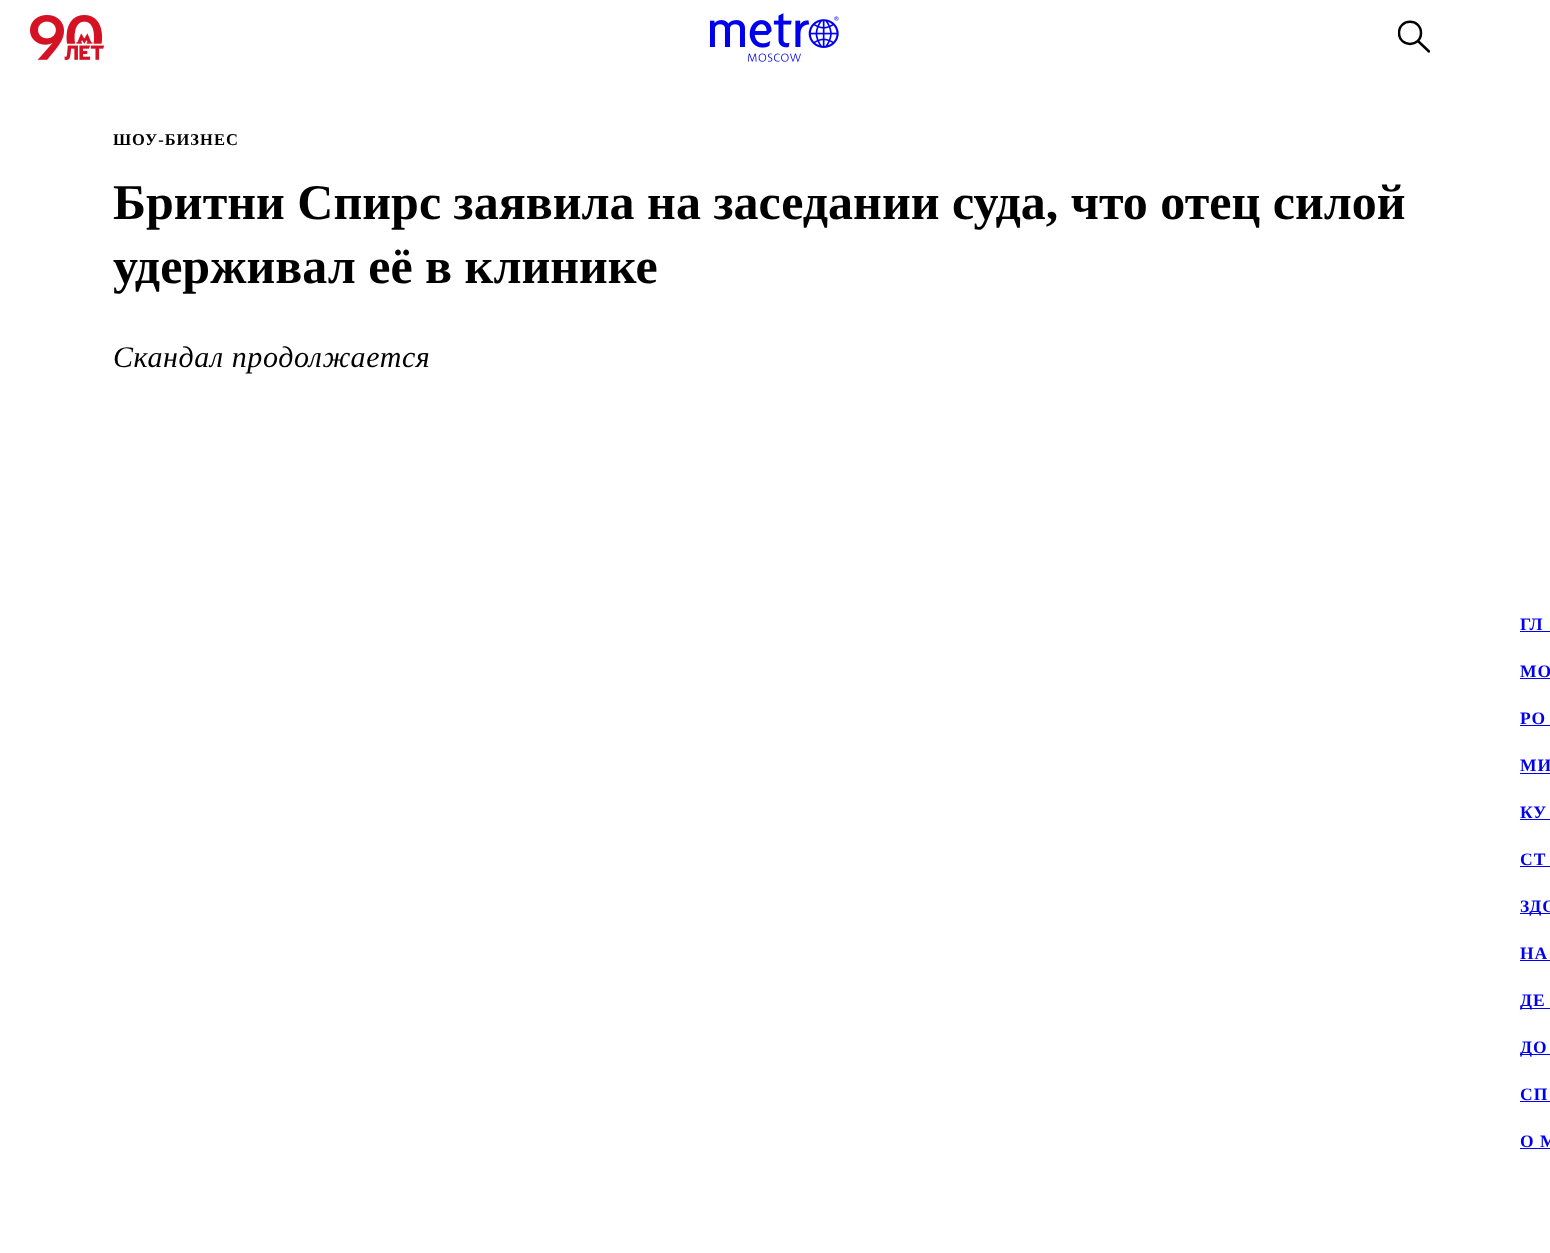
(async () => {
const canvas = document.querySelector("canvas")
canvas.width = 1550
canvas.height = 1253
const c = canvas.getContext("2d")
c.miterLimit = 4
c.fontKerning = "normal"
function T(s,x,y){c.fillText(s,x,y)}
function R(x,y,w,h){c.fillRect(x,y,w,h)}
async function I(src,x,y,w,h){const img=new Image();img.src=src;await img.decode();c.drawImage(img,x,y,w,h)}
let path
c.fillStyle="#fff"
R(0,0,1550,1253)
c.letterSpacing="1px"
c.font="bold 16.5px Liberation Serif"
c.fillStyle="#000"
T("ШОУ-БИЗНЕС",113,145)
c.letterSpacing="0px"
c.font="bold 50px Liberation Serif"
T("Бритни Спирс заявила на заседании суда, что отец силой",113,219)
T("удерживал её в клинике",113,283)
c.letterSpacing="0.6px"
c.font="italic 30px Liberation Serif"
T("Скандал продолжается",113,367)
await I("1.png",30,15,75,45)
await I("2.png",710,13,129,49)
c.save()
c.beginPath()
c.rect(1398,20,32,33)
c.clip()
path = new Path2D("M1429 51.5l-11-10.5m3-8c0 14.5-22 14.5-22 0c0-15 22-15 22 0")
c.strokeStyle="#000"
c.lineWidth=2.5
c.lineCap="round"
c.lineJoin="round"
c.stroke(path)
c.restore()
c.letterSpacing="1px"
c.font="bold 17.5px Liberation Serif"
c.fillStyle="#00e"
T("ГЛ",1520,630)
R(1520,631,30,1)
T("МО",1520,677)
R(1520,678,30,1)
T("РО",1520,724)
R(1520,725,30,1)
T("МИ",1520,771)
R(1520,773,30,1)
T("КУ",1520,818)
R(1520,819,30,1)
T("СТ",1520,865)
R(1520,866,30,1)
R(1520,913,30,1)
T("ЗДО",1520,912)
T("НА",1520,959)
R(1520,960,30,1)
R(1520,1008,30,1)
T("ДЕ",1520,1006)
R(1520,1054,30,1)
T("ДО",1520,1053)
T("СП",1520,1100)
R(1520,1101,30,1)
T("О M",1520,1147)
R(1520,1148,30,1)
})()
